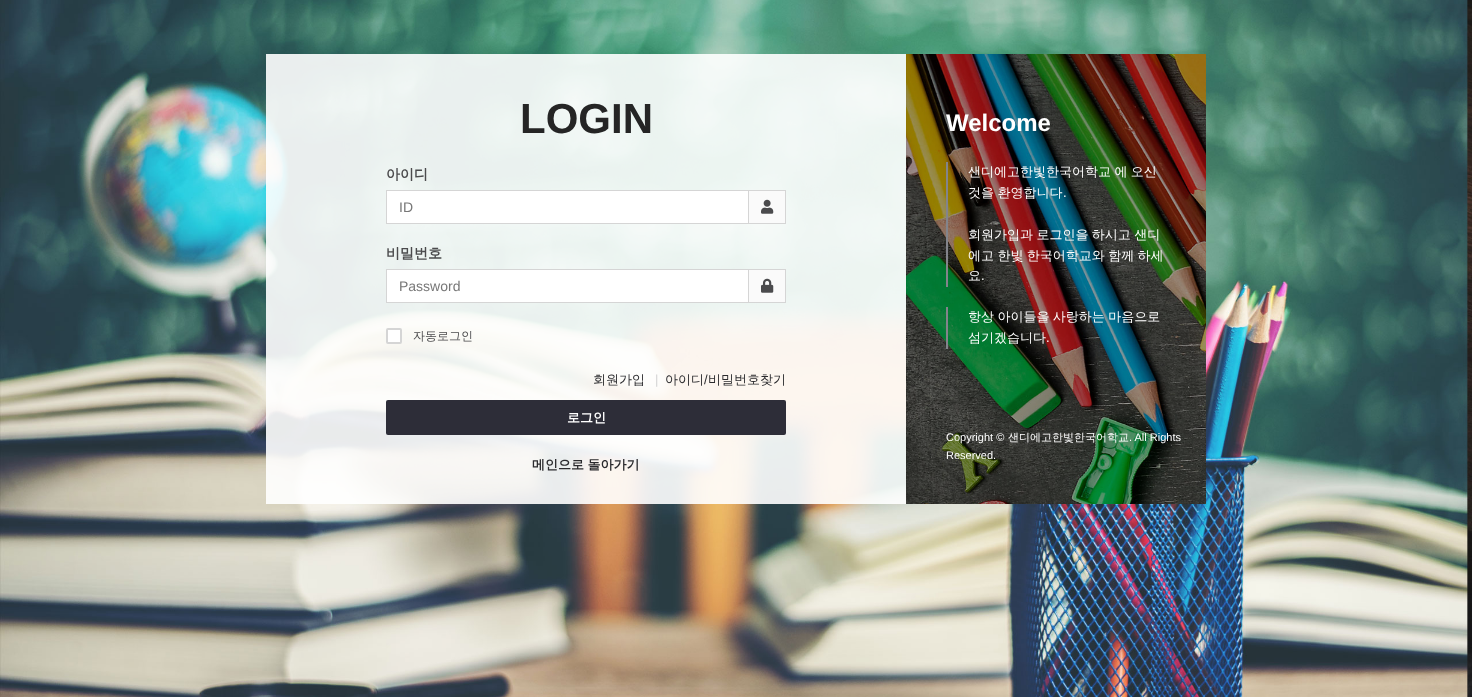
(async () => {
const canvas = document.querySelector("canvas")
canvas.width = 1472
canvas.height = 697
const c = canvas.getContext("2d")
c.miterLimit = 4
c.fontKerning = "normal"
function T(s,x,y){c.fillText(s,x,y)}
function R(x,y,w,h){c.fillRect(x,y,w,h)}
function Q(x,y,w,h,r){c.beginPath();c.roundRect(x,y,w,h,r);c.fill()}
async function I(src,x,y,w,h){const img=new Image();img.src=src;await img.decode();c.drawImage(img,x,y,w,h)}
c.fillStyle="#fff"
R(0,0,1472,697)
await I("1.png",0,0,1472,697)
c.fillStyle="#ffffffe6"
R(266,54,640,450)
c.font="bold 42px Liberation Sans"
c.fillStyle="#252525"
T("LOGIN",520,133)
c.font="bold 14px WenQuanYi Zen Hei"
c.fillStyle="#4b4b4d"
T("아이디",386,179)
c.fillStyle="#fff"
R(387,191,361,32)
c.strokeStyle="#d5d5d5"
c.strokeRect(386.5,190.5,399,33)
c.font="14px Liberation Sans"
c.fillStyle="#777"
T("ID",399,212)
c.fillStyle="#fafafa"
R(749,191,36,32)
c.fillStyle="#d5d5d5"
R(748,191,1,32)
await I("2.png",761,199,13,15)
c.font="bold 14px WenQuanYi Zen Hei"
c.fillStyle="#4b4b4d"
T("비밀번호",386,258)
c.fillStyle="#fff"
R(387,270,361,32)
c.strokeRect(386.5,269.5,399,33)
c.font="14px Liberation Sans"
c.fillStyle="#777"
T("Password",399,291)
c.fillStyle="#fafafa"
R(749,270,36,32)
c.fillStyle="#d5d5d5"
R(748,270,1,32)
await I("3.png",761,278,13,15)
c.fillStyle="#fff"
c.beginPath()
c.roundRect(387,329,14,14,1)
c.fill()
c.lineWidth=2
c.stroke()
c.font="500 12px WenQuanYi Zen Hei"
c.fillStyle="#4b4b4d"
T("자동로그인",413,340)
c.font="500 13px WenQuanYi Zen Hei"
c.fillStyle="#2b2b2e"
T("회원가입",593,384)
c.font="13px Liberation Sans"
c.fillStyle="#d5d5d5"
T("|",655,384)
c.font="500 13px WenQuanYi Zen Hei"
c.fillStyle="#2b2b2e"
T("아이디 비밀번호찾기",665,384)
c.font="13px Liberation Sans"
T("/",704,384)
c.fillStyle="#2d2d38"
Q(386,400,400,35,2)
c.font="bold 13px WenQuanYi Zen Hei"
c.fillStyle="#fff"
T("로그인",567,422)
c.wordSpacing="-0.5px"
c.fillStyle="#2b2b2e"
T("메인으로 돌아가기",532,469)
await I("4.png",906,54,300,450)
c.wordSpacing="0px"
c.font="bold 24px Liberation Sans"
c.fillStyle="#fff"
T("Welcome",946,131)
c.fillStyle="#83848b"
R(946,162,2,125)
c.wordSpacing="-0.5px"
c.font="500 13px WenQuanYi Zen Hei"
c.fillStyle="#fff"
T("샌디에고한빛한국어학교 에 오신",968,176)
T("것을 환영합니다",968,197)
c.wordSpacing="0px"
c.font="13px Liberation Sans"
T(".",1063,197)
c.wordSpacing="-0.5px"
c.font="500 13px WenQuanYi Zen Hei"
T("회원가입과 로그인을 하시고 샌디",968,239)
T("에고 한빛 한국어학교와 함께 하세",968,260)
c.wordSpacing="0px"
T("요",968,280)
c.font="13px Liberation Sans"
T(".",981,280)
c.fillStyle="#83848b"
R(946,307,2,42)
c.wordSpacing="-0.5px"
c.font="500 13px WenQuanYi Zen Hei"
c.fillStyle="#fff"
T("항상 아이들을 사랑하는 마음으로",968,321)
c.wordSpacing="0px"
T("섬기겠습니다",968,342)
c.font="13px Liberation Sans"
T(".",1046,342)
c.font="11px Liberation Sans"
T("Copyright ©",946,441)
c.font="500 11px WenQuanYi Zen Hei"
T("샌디에고한빛한국어학교",1008,441)
c.font="11px Liberation Sans"
T(". All Rights",1129,441)
T("Reserved.",946,459)
})()
